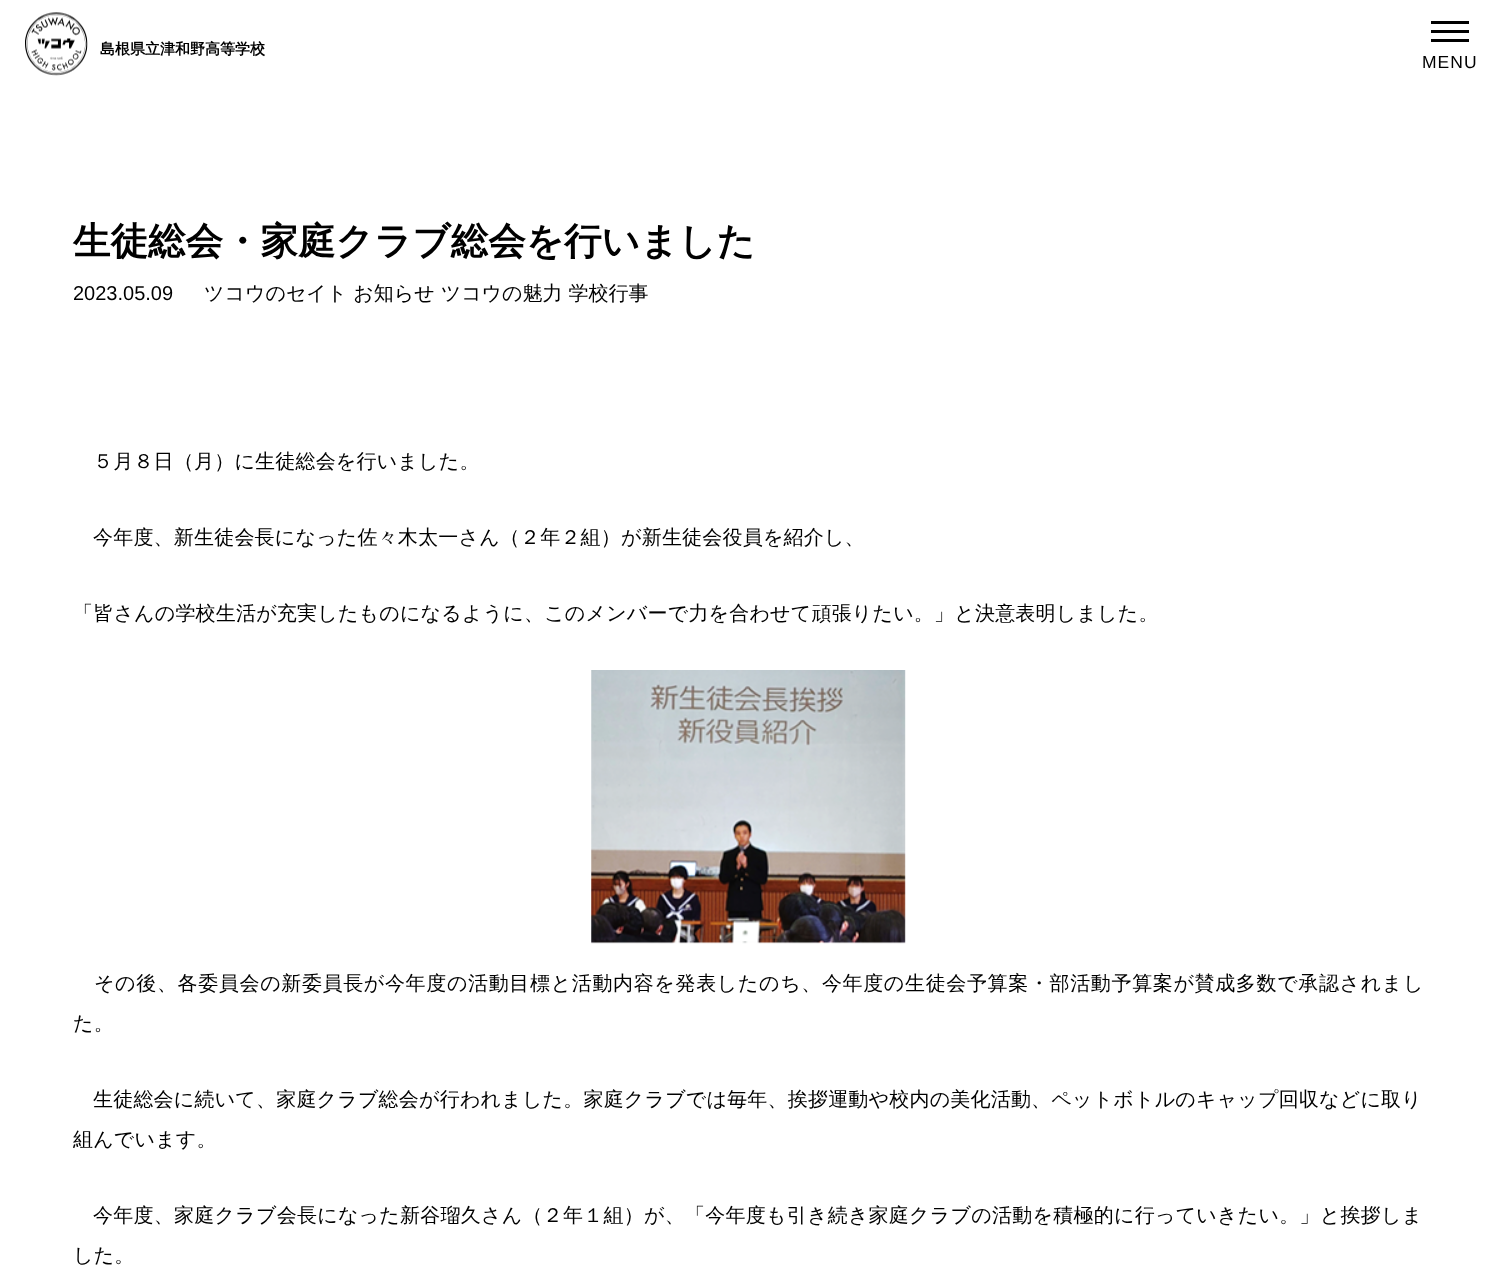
(async () => {
const canvas = document.querySelector("canvas")
canvas.width = 1496
canvas.height = 1270
const c = canvas.getContext("2d")
c.miterLimit = 4
c.fontKerning = "normal"
function T(s,x,y){c.fillText(s,x,y)}
function R(x,y,w,h){c.fillRect(x,y,w,h)}
async function I(src,x,y,w,h){const img=new Image();img.src=src;await img.decode();c.drawImage(img,x,y,w,h)}
c.fillStyle="#fff"
R(0,0,1496,1270)
await I("1.png",25,12,63,64)
c.font="bold 15px WenQuanYi Zen Hei"
c.fillStyle="#000"
T("島根県立津和野高等学校",100,54)
R(1431,30,38,3)
R(1431,21,38,3)
R(1431,39,38,3)
c.letterSpacing="1px"
c.font="17.5px Liberation Sans"
T("MENU",1422,68)
c.letterSpacing="0px"
c.font="bold 37.5px WenQuanYi Zen Hei"
T("生徒総会・家庭クラブ総会を行いました",73,254)
c.font="20px Liberation Sans"
T("2023.05.09",73,300)
c.font="500 20px WenQuanYi Zen Hei"
T("ツコウのセイト お知らせ ツコウの魅力 学校行事",204,300)
c.letterSpacing="0.2px"
T("５月８日（月）に生徒総会を行いました。",93,468)
T("今年度、新生徒会長になった佐々木太一さん（２年２組）が新生徒会役員を紹介し、",93,544)
T("「皆さんの学校生活が充実したものになるように、このメンバーで力を合わせて頑張りたい。」と決意表明しました。",73,620)
await I("2.png",591,670,315,274)
c.letterSpacing="0.65px"
T("その後、各委員会の新委員長が今年度の活動目標と活動内容を発表したのち、今年度の生徒会予算案・部活動予算案が賛成多数で承認されまし",94,990)
c.letterSpacing="0.2px"
T("た。",73,1030)
T("生徒総会に続いて、家庭クラブ総会が行われました。家庭クラブでは毎年、挨拶運動や校内の美化活動、ペットボトルのキャップ回収などに取り",93,1106)
T("組んでいます。",73,1146)
c.letterSpacing="0.25px"
T("今年度、家庭クラブ会長になった新谷瑠久さん（２年１組）が、「今年度も引き続き家庭クラブの活動を積極的に行っていきたい。」と挨拶しま",93,1222)
c.letterSpacing="0.2px"
T("した。",73,1262)
})()
